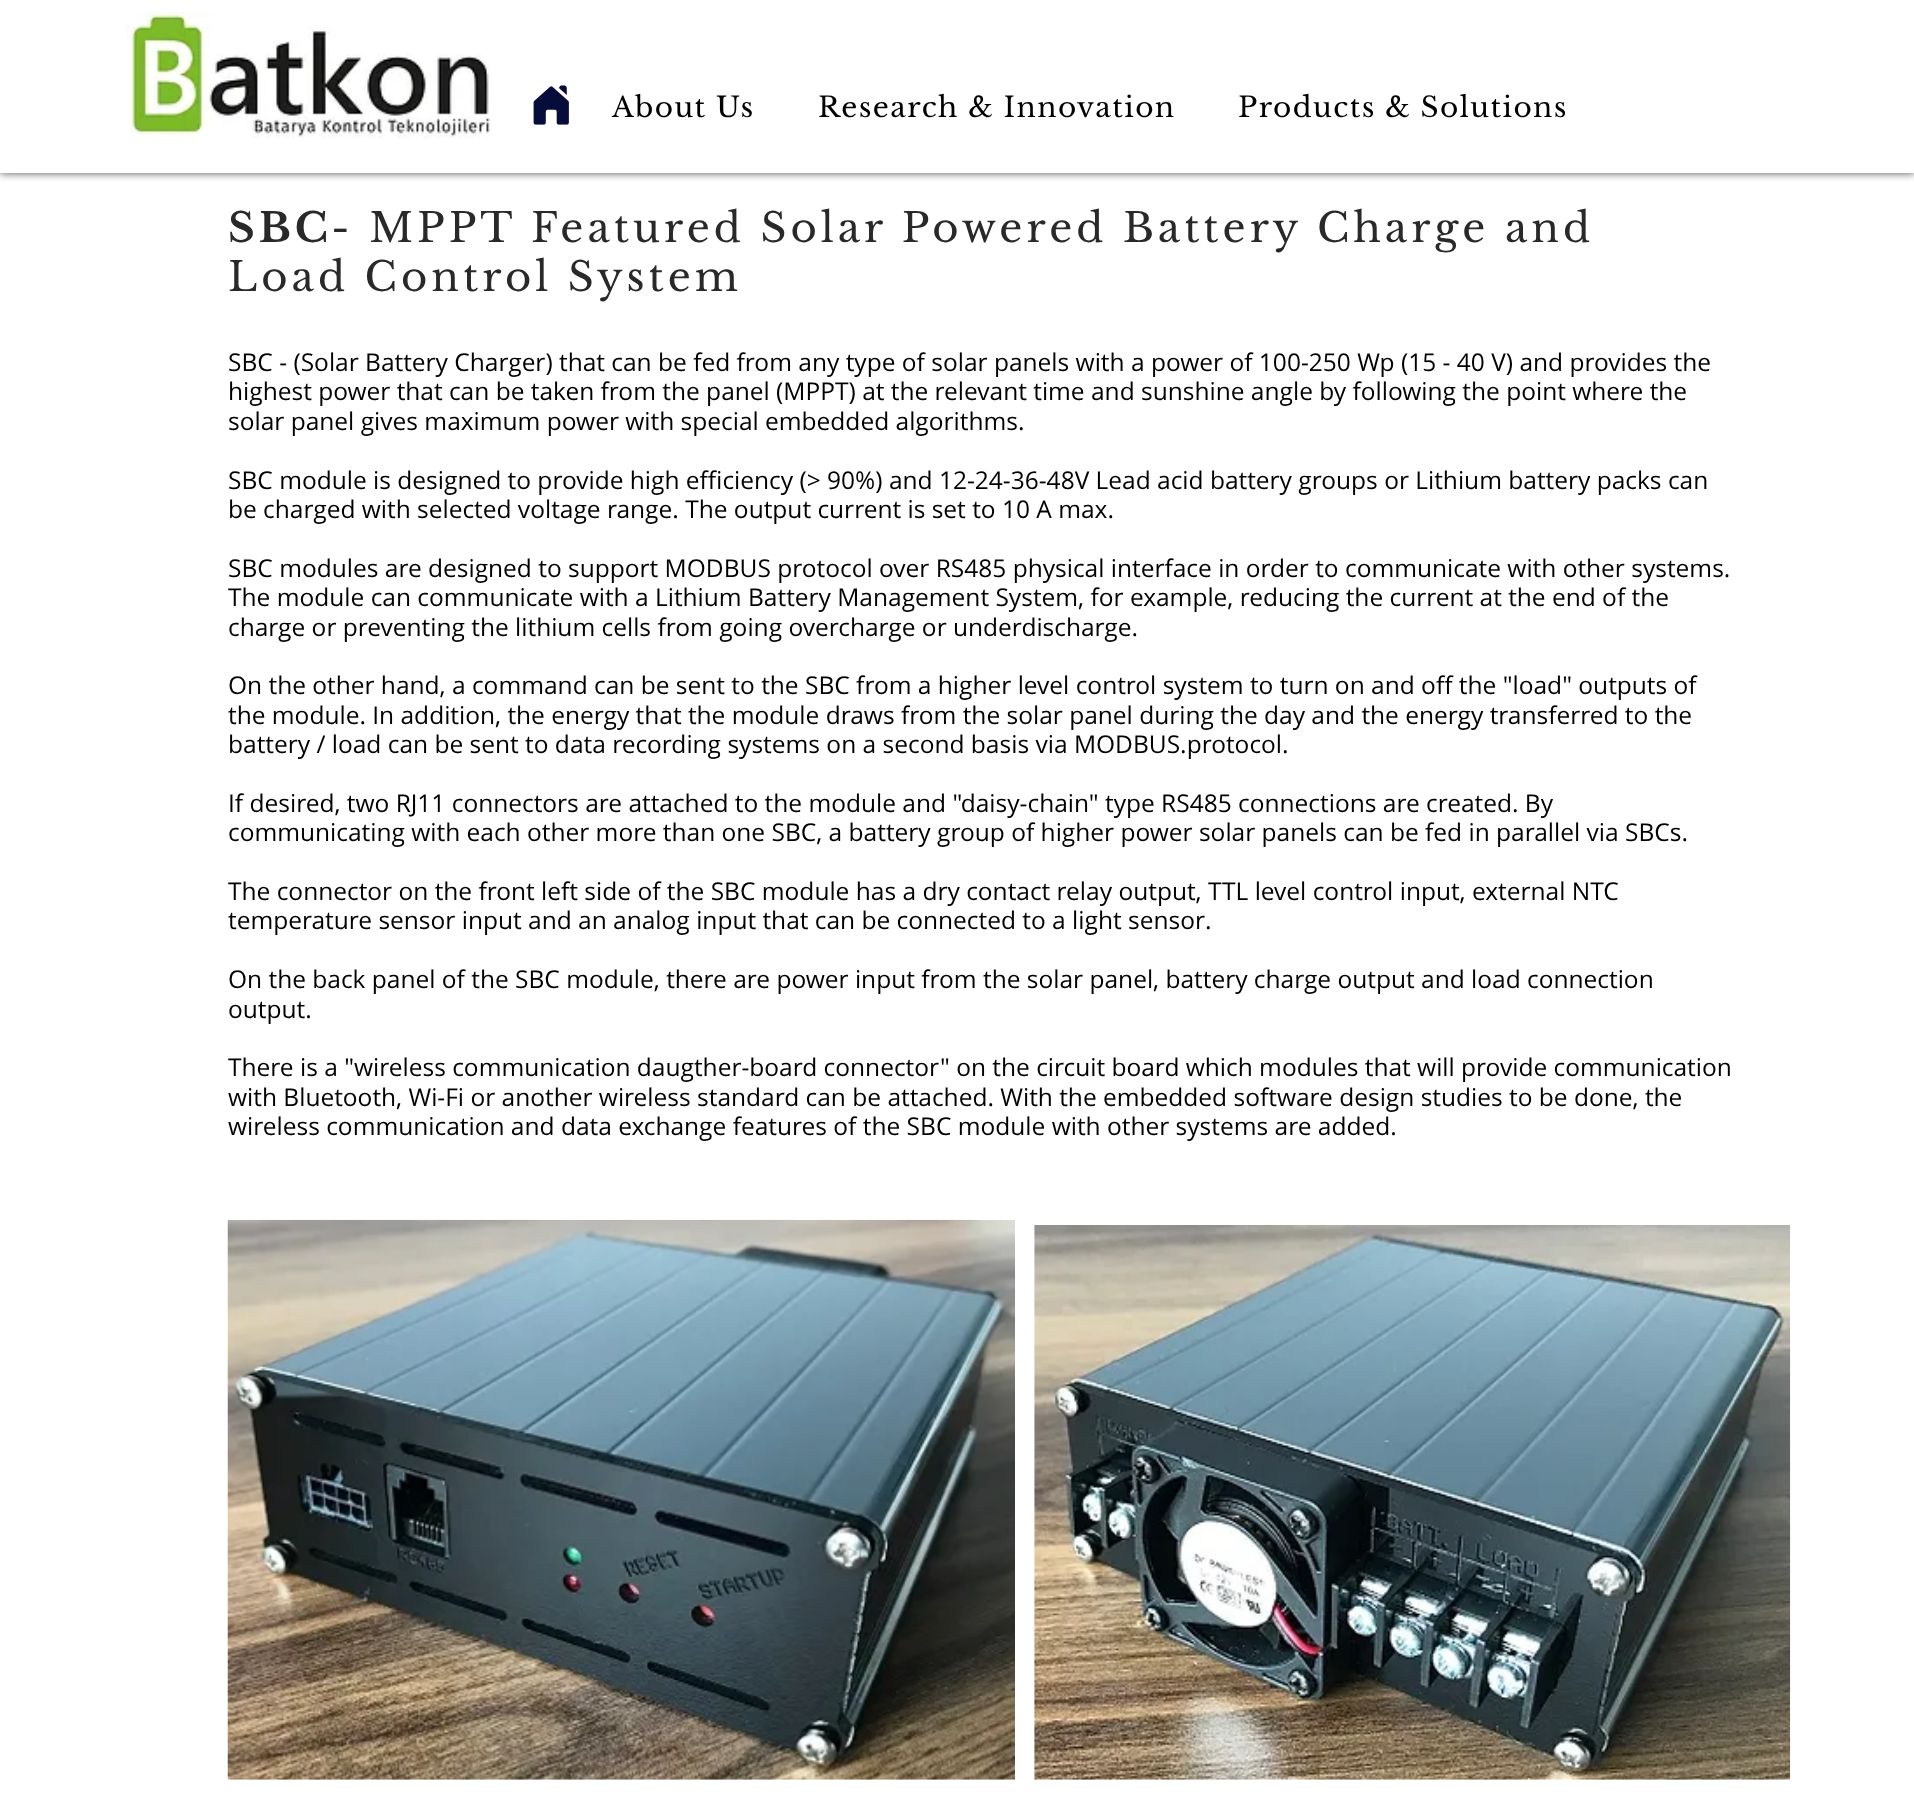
(async () => {
const canvas = document.querySelector("canvas")
canvas.width = 1914
canvas.height = 1816
const c = canvas.getContext("2d")
c.miterLimit = 4
c.fontKerning = "normal"
function T(s,x,y){c.fillText(s,x,y)}
function R(x,y,w,h){c.fillRect(x,y,w,h)}
async function I(src,x,y,w,h){const img=new Image();img.src=src;await img.decode();c.drawImage(img,x,y,w,h)}
c.fillStyle="#fff"
R(0,0,1914,1816)
c.save()
c.beginPath()
c.rect(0,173,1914,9)
c.clip()
c.fillStyle="#000000b3"
c.filter="blur(4.5px)"
c.beginPath()
c.rect(0,0,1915,173)
c.fill()
c.filter="none"
c.restore()
await I("1.png",126,12,365,127)
await I("2.png",533,85,36,40)
c.letterSpacing="1.4px"
c.font="28px Libre Baskerville"
c.fillStyle="#000"
T("About Us",612,117)
T("Research & Innovation",818,117)
T("Products & Solutions",1238,117)
c.letterSpacing="4px"
c.font="bold 40.25px Libre Baskerville"
c.fillStyle="#292929"
T("SBC",228,242)
c.font="40.25px Libre Baskerville"
T("- MPPT Featured Solar Powered Battery Charge and",331,242)
T("Load Control System",228,291)
c.letterSpacing="0px"
c.font="24.5px Open Sans"
c.fillStyle="#000"
T("SBC - (Solar Battery Charger) that can be fed from any type of solar panels with a power of 100-250 Wp (15 - 40 V) and provides the",228,371)
T("highest power that can be taken from the panel (MPPT) at the relevant time and sunshine angle by following the point where the",228,400)
T("solar panel gives maximum power with special embedded algorithms.",228,430)
T("SBC module is designed to provide high efficiency (> 90%) and 12-24-36-48V Lead acid battery groups or Lithium battery packs can",228,489)
T("be charged with selected voltage range. The output current is set to 10 A max.",228,518)
T("SBC modules are designed to support MODBUS protocol over RS485 physical interface in order to communicate with other systems.",228,577)
T("The module can communicate with a Lithium Battery Management System, for example, reducing the current at the end of the",228,606)
T("charge or preventing the lithium cells from going overcharge or underdischarge.",228,636)
T("On the other hand, a command can be sent to the SBC from a higher level control system to turn on and off the \"load\" outputs of",228,694)
T("the module. In addition, the energy that the module draws from the solar panel during the day and the energy transferred to the",228,724)
T("battery / load can be sent to data recording systems on a second basis via MODBUS.protocol.",228,753)
T("If desired, two RJ11 connectors are attached to the module and \"daisy-chain\" type RS485 connections are created. By",228,812)
T("communicating with each other more than one SBC, a battery group of higher power solar panels can be fed in parallel via SBCs.",228,841)
T("The connector on the front left side of the SBC module has a dry contact relay output, TTL level control input, external NTC",228,900)
T("temperature sensor input and an analog input that can be connected to a light sensor.",228,929)
T("On the back panel of the SBC module, there are power input from the solar panel, battery charge output and load connection",228,988)
T("output.",228,1018)
T("There is a \"wireless communication daugther-board connector\" on the circuit board which modules that will provide communication",228,1076)
T("with Bluetooth, Wi-Fi or another wireless standard can be attached. With the embedded software design studies to be done, the",228,1106)
T("wireless communication and data exchange features of the SBC module with other systems are added.",228,1135)
await I("3.png",227,1219,788,561)
await I("4.png",1034,1225,757,555)
})()
